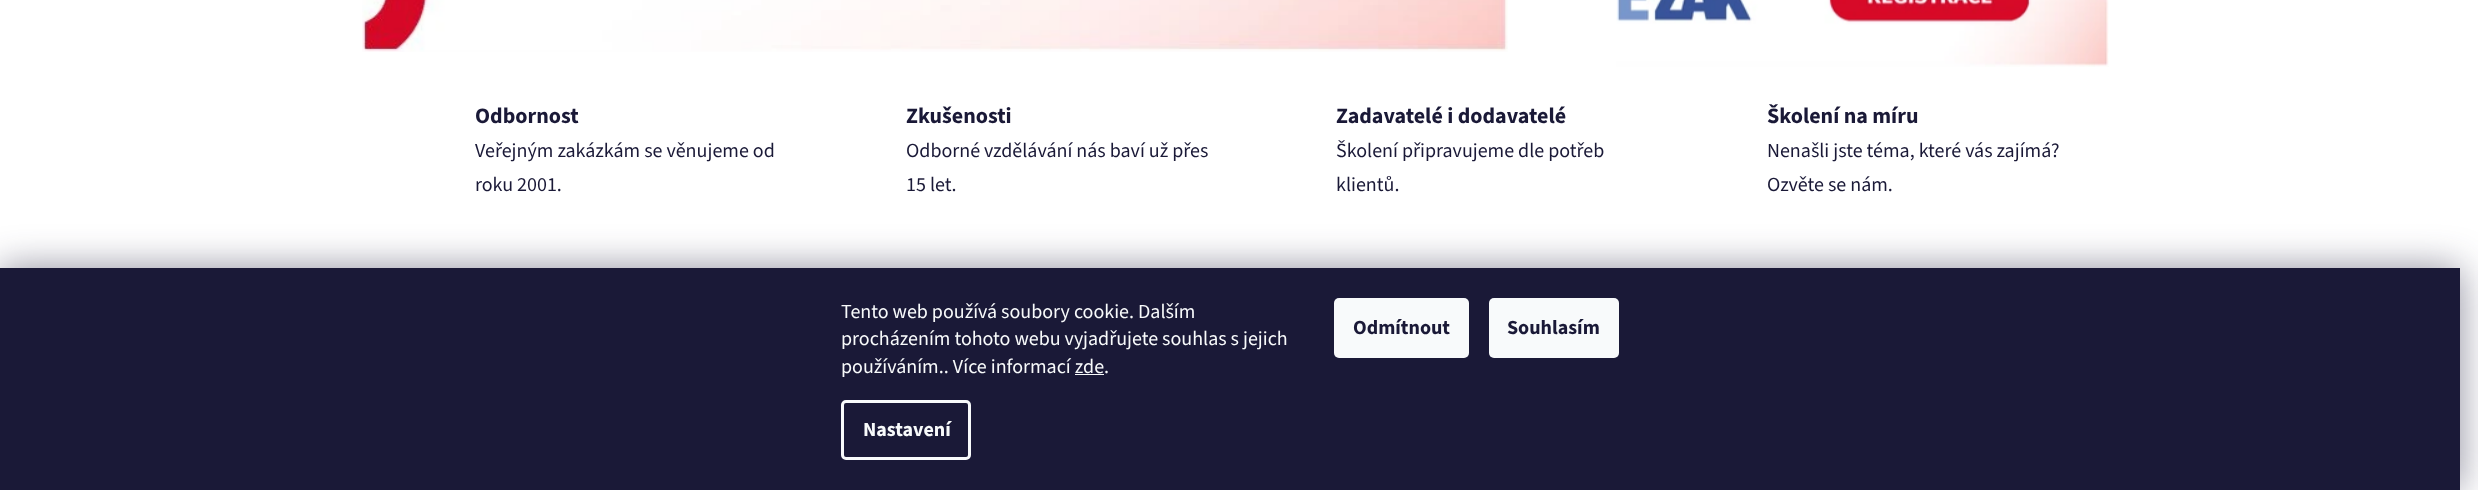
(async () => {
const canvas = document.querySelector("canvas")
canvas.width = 2478
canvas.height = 490
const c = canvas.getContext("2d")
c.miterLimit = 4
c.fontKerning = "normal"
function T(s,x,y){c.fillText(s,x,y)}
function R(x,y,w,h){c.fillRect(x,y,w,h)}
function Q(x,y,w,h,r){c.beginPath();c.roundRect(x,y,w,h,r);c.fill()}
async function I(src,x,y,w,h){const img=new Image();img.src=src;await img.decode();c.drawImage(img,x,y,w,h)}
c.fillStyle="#fff"
R(0,0,2478,490)
await I("1.png",362,0,1146,52)
await I("2.png",1616,0,493,67)
c.font="bold 22px 'Source Sans 3'"
c.fillStyle="#1a1937"
T("Odbornost",475,123)
c.font="20px 'Source Sans 3'"
T("Veřejným zakázkám se věnujeme od",475,157)
T("roku 2001.",475,191)
c.font="bold 22px 'Source Sans 3'"
T("Zkušenosti",906,123)
c.font="20px 'Source Sans 3'"
T("Odborné vzdělávání nás baví už přes",906,157)
T("15 let.",906,191)
c.font="bold 22px 'Source Sans 3'"
T("Zadavatelé i dodavatelé",1336,123)
c.font="20px 'Source Sans 3'"
T("Školení připravujeme dle potřeb",1336,157)
T("klientů.",1336,191)
c.font="bold 22px 'Source Sans 3'"
T("Školení na míru",1767,123)
c.font="20px 'Source Sans 3'"
T("Nenašli jste téma, které vás zajímá?",1767,157)
T("Ozvěte se nám.",1767,191)
c.fillStyle="#1b193980"
c.filter="blur(19px)"
c.beginPath()
c.rect(0,268,2460,222)
c.fill()
c.filter="none"
c.fillStyle="#1a1937"
R(0,268,2460,222)
c.fillStyle="#f8fafb"
T("Tento web používá soubory cookie. Dalším",841,318)
T("procházením tohoto webu vyjadřujete souhlas s jejich",841,345)
T("používáním.. Více informací zde.",841,373)
R(1075,374,29,1)
c.beginPath()
c.roundRect(842.5,401.5,127,57,3.5)
c.strokeStyle="#f8fafb"
c.lineWidth=3
c.stroke()
c.font="bold 20px 'Source Sans 3'"
T("Nastavení",863,436)
Q(1334,298,135,60,5)
c.fillStyle="#1a1937"
T("Odmítnout",1353,334)
c.fillStyle="#f8fafb"
Q(1489,298,130,60,5)
c.fillStyle="#1a1937"
T("Souhlasím",1507,334)
})()
